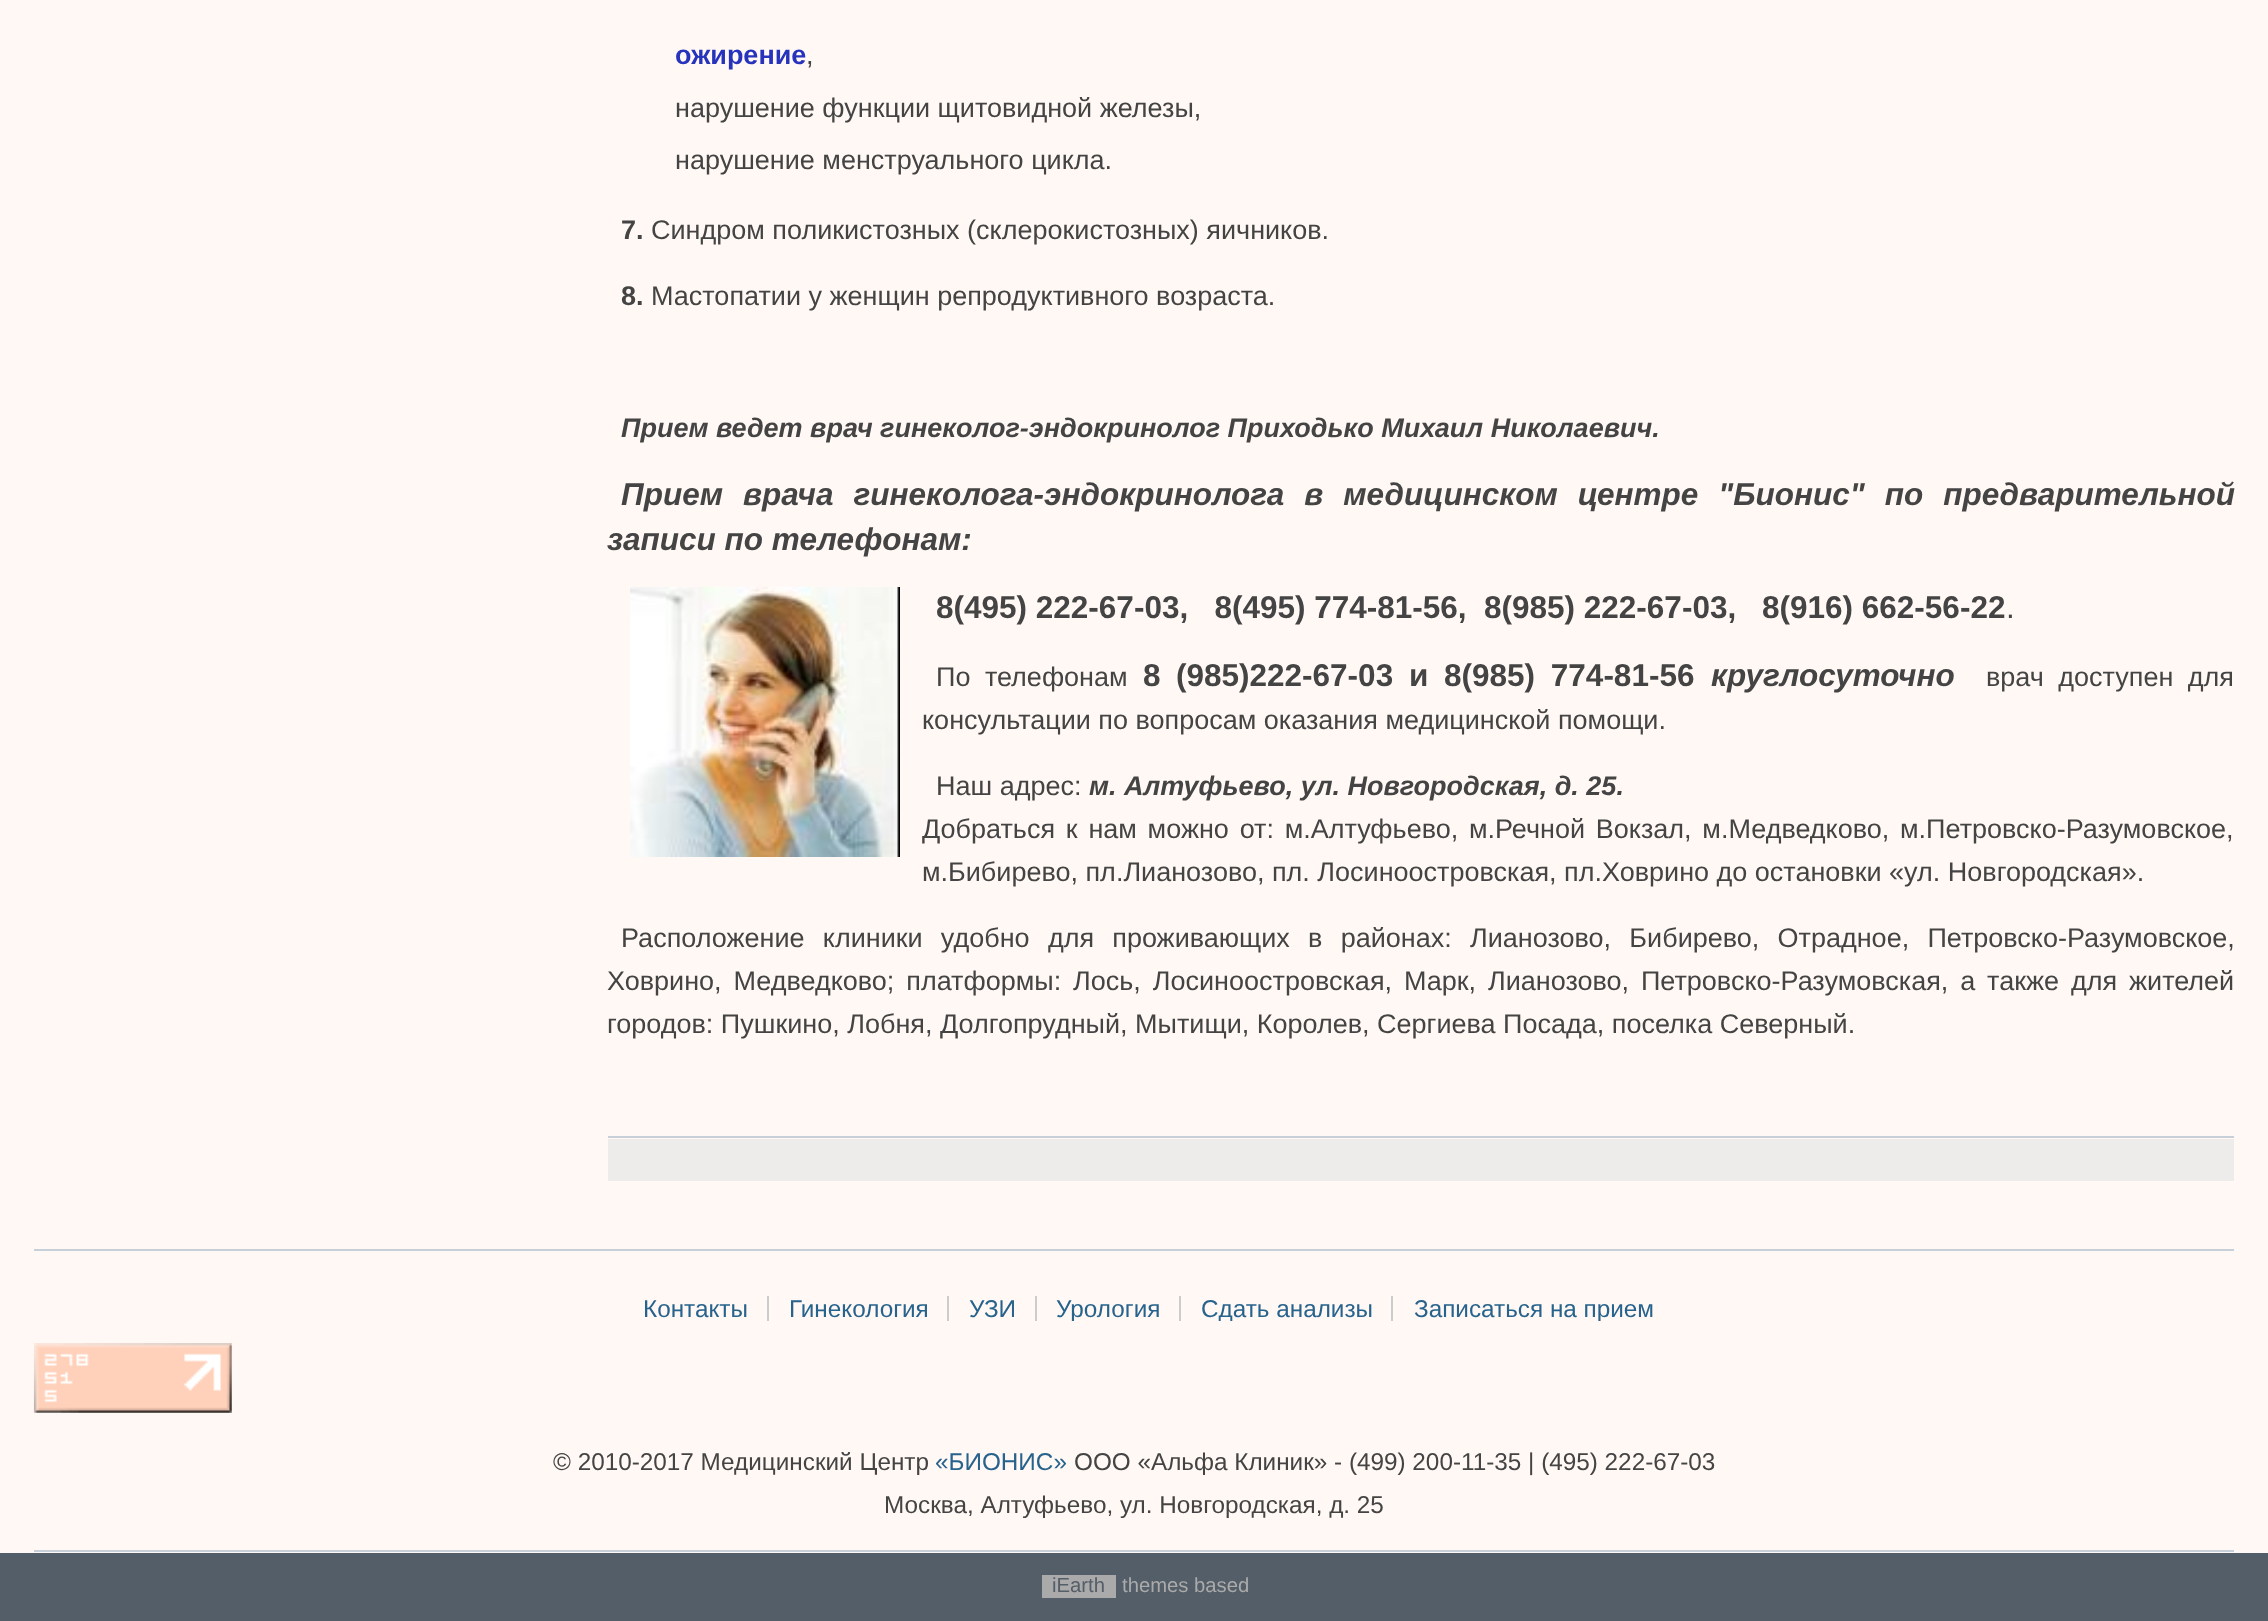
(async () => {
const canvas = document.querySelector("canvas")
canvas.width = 2268
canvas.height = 1621
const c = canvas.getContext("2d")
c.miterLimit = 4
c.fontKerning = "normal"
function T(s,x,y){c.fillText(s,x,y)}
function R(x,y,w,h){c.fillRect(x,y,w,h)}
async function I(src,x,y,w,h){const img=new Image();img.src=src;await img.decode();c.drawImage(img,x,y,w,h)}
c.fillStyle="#fff8f4"
R(0,0,2268,1621)
c.fillStyle="#c7d0d8"
R(608,1136,1626,2)
c.font="bold 27px Liberation Sans"
c.fillStyle="#2733bc"
T("ожирение",675,64)
c.font="27px Liberation Sans"
c.fillStyle="#444"
T(",",806,64)
T("нарушение функции щитовидной железы,",675,117)
T("нарушение менструального цикла.",675,169)
c.font="bold 27px Liberation Sans"
T("7.",621,239)
c.font="27px Liberation Sans"
T("Синдром поликистозных (склерокистозных) яичников.",651,239)
c.font="bold 27px Liberation Sans"
T("8.",621,305)
c.font="27px Liberation Sans"
T("Мастопатии у женщин репродуктивного возраста.",651,305)
c.font="italic bold 27px Liberation Sans"
T("Прием ведет врач гинеколог-эндокринолог Приходько Михаил Николаевич.",621,437)
c.wordSpacing="11.25px"
c.font="italic bold 31.5px Liberation Sans"
T("Прием врача гинеколога-эндокринолога в медицинском центре \"Бионис\" по предварительной",621,505)
c.wordSpacing="0px"
T("записи по телефонам:",607,550)
await I("1.png",630,587,270,270)
c.font="bold 31.5px Liberation Sans"
T("8(495) 222-67-03,   8(495) 774-81-56,",936,618)
T("8(985) 222-67-03,",1484,618)
T("8(916) 662-56-22",1762,618)
c.font="31.5px Liberation Sans"
T(".",2006,618)
c.wordSpacing="7px"
c.font="27px Liberation Sans"
T("По телефонам",936,686)
c.wordSpacing="0px"
c.font="bold 31.5px Liberation Sans"
T("8",1143,686)
c.wordSpacing="7px"
T("(985)222-67-03 и 8(985) 774-81-56",1176,686)
c.wordSpacing="0px"
c.font="italic bold 31.5px Liberation Sans"
T("круглосуточно",1711,686)
c.wordSpacing="7px"
c.font="27px Liberation Sans"
T("врач доступен для",1986,686)
c.wordSpacing="0px"
T("консультации по вопросам оказания медицинской помощи.",922,729)
T("Наш адрес:",936,795)
c.font="italic bold 27px Liberation Sans"
T("м. Алтуфьево, ул. Новгородская, д. 25.",1089,795)
c.wordSpacing="3.25px"
c.font="27px Liberation Sans"
T("Добраться к нам можно от: м.Алтуфьево, м.Речной Вокзал, м.Медведково, м.Петровско-Разумовское,",922,838)
c.wordSpacing="0px"
T("м.Бибирево, пл.Лианозово, пл. Лосиноостровская, пл.Ховрино до остановки «ул. Новгородская».",922,881)
c.wordSpacing="10.75px"
T("Расположение клиники удобно для проживающих в районах: Лианозово, Бибирево, Отрадное, Петровско-Разумовское,",621,947)
c.wordSpacing="4.4px"
T("Ховрино, Медведково; платформы: Лось, Лосиноостровская, Марк, Лианозово, Петровско-Разумовская, а также для жителей",607,990)
c.wordSpacing="0px"
T("городов: Пушкино, Лобня, Долгопрудный, Мытищи, Королев, Сергиева Посада, поселка Северный.",607,1033)
c.fillStyle="#eeebeb"
R(608,1139,1626,42)
c.fillStyle="#c7d0d8"
R(34,1249,2200,2)
R(34,1550,2200,2)
c.font="24.3px Liberation Sans"
c.fillStyle="#27638c"
T("Контакты",643,1317)
c.fillStyle="#ccc"
R(767,1296,2,25)
c.fillStyle="#27638c"
T("Гинекология",789,1317)
c.fillStyle="#ccc"
R(947,1296,2,25)
c.fillStyle="#27638c"
T("УЗИ",969,1317)
c.fillStyle="#ccc"
R(1035,1296,2,25)
c.save()
c.beginPath()
c.rect(34,1296,2200,25)
c.clip()
c.fillStyle="#27638c"
T("Урология",1056,1317)
c.restore()
R(1179,1296,2,25)
c.save()
c.beginPath()
c.rect(34,1296,2200,25)
c.clip()
c.fillStyle="#27638c"
T("Сдать анализы",1201,1317)
c.restore()
R(1391,1296,2,25)
c.save()
c.beginPath()
c.rect(34,1296,2200,25)
c.clip()
c.fillStyle="#27638c"
T("Записаться на прием",1414,1317)
c.restore()
await I("2.png",33,1343,199,70)
c.fillStyle="#444"
T("© 2010-2017 Медицинский Центр",553,1470)
c.fillStyle="#27638c"
T("«БИОНИС»",935,1470)
c.fillStyle="#444"
T("ООО «Альфа Клиник» - (499) 200-11-35 | (495) 222-67-03",1074,1470)
T("Москва, Алтуфьево, ул. Новгородская, д. 25",884,1513)
c.fillStyle="#545e68"
R(0,1553,2268,68)
c.fillStyle="#aaa"
R(1042,1575,74,23)
c.font="20.25px Liberation Sans"
c.fillStyle="#545e68"
T("iEarth",1052,1592)
c.fillStyle="#aaa"
T("themes based",1122,1592)
})()
